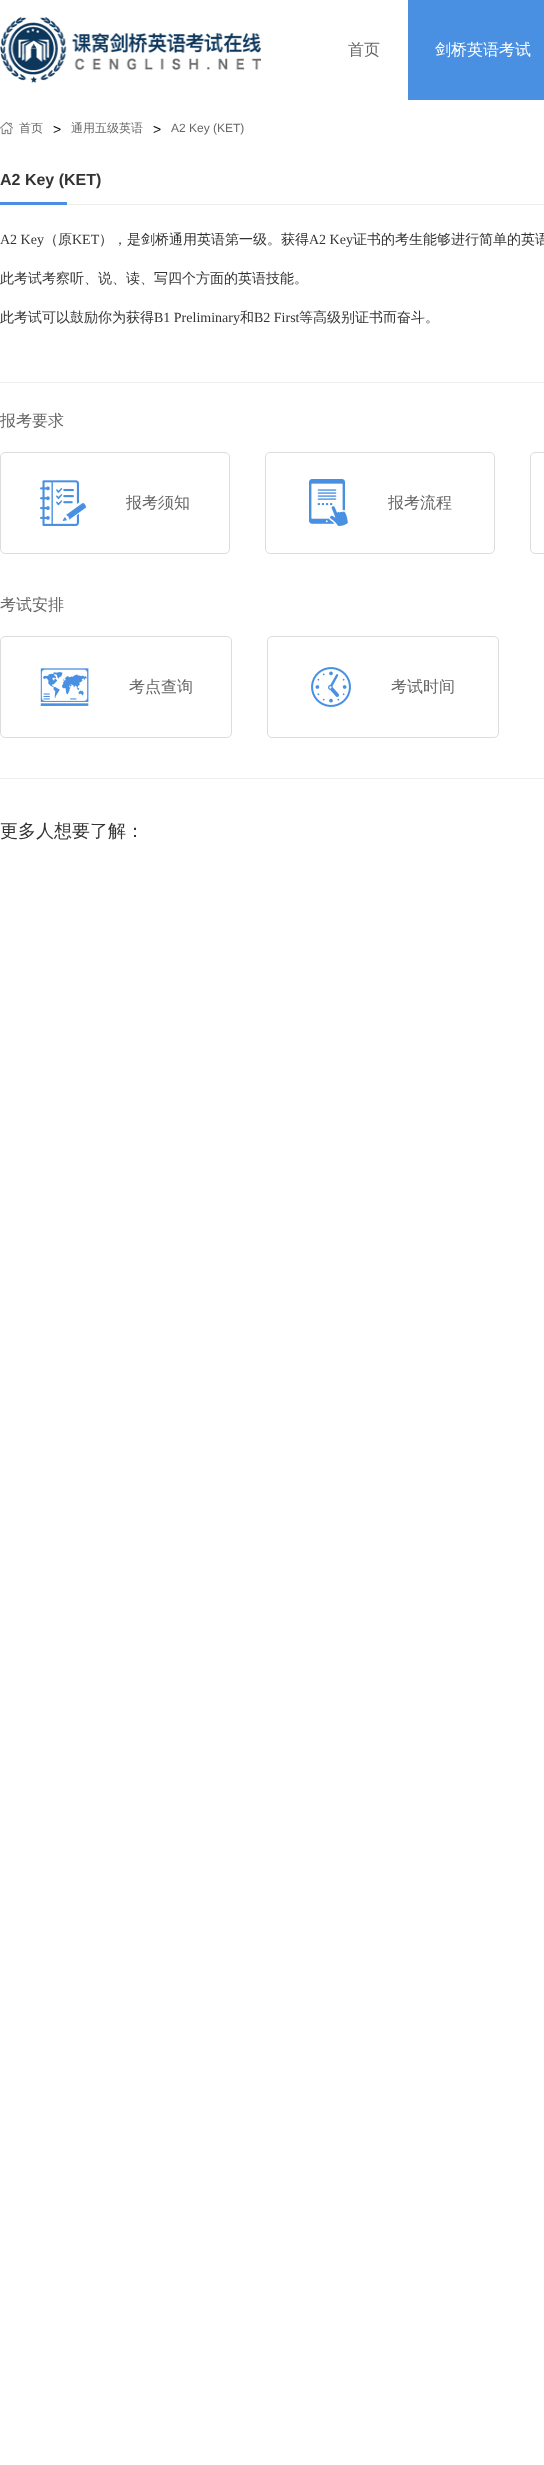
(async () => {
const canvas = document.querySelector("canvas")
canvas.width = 544
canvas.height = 2465
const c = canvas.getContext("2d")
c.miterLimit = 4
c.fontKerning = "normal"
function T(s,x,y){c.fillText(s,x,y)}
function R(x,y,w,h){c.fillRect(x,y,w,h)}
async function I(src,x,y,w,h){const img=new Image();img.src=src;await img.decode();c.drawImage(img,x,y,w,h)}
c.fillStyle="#fff"
R(0,0,544,2465)
await I("1.png",0,17,261,66)
c.font="500 16px WenQuanYi Zen Hei"
c.fillStyle="#666"
T("首页",348,55)
c.fillStyle="#4a90e2"
R(408,0,136,100)
c.fillStyle="#fff"
T("剑桥英语考试",435,55)
await I("2.png",0,122,13,13)
c.font="500 12px WenQuanYi Zen Hei"
c.fillStyle="#666"
T("首页",19,132)
c.font="14px Liberation Sans"
c.fillStyle="#000"
T(">",53,134)
c.font="500 12px WenQuanYi Zen Hei"
c.fillStyle="#666"
T("通用五级英语",71,132)
c.font="14px Liberation Sans"
c.fillStyle="#000"
T(">",153,134)
c.font="12px Liberation Sans"
c.fillStyle="#666"
T("A2 Key (KET)",171,132)
c.fillStyle="#eee"
R(67,204,477,1)
c.font="bold 16px Liberation Sans"
c.fillStyle="#333"
T("A2 Key (KET)",0,185)
c.fillStyle="#4a90e2"
R(0,202,67,3)
c.fillStyle="#eee"
R(0,382,544,1)
c.font="14px Liberation Serif"
c.fillStyle="#333"
T("A2 Key",0,244)
c.font="500 14px WenQuanYi Zen Hei"
T("（原",44,244)
c.font="14px Liberation Serif"
T("KET",72,244)
c.font="500 14px WenQuanYi Zen Hei"
T("），是剑桥通用英语第一级。获得",99,244)
c.font="14px Liberation Serif"
T("A2 Key",309,244)
c.font="500 14px WenQuanYi Zen Hei"
T("证书的考生能够进行简单的英语",353,244)
T("此考试考察听、说、读、写四个方面的英语技能。",0,283)
T("此考试可以鼓励你为获得",0,322)
c.font="14px Liberation Serif"
T("B1 Preliminary",154,322)
c.font="500 14px WenQuanYi Zen Hei"
T("和",240,322)
c.font="14px Liberation Serif"
T("B2 First",254,322)
c.font="500 14px WenQuanYi Zen Hei"
T("等高级别证书而奋斗。",299,322)
c.fillStyle="#eee"
R(0,778,544,1)
c.font="500 16px WenQuanYi Zen Hei"
c.fillStyle="#666"
T("报考要求",0,426)
c.beginPath()
c.roundRect(.5,452.5,229,101,4.5)
c.strokeStyle="#ddd"
c.stroke()
await I("3.png",40,480,46,46)
T("报考须知",126,508)
c.beginPath()
c.roundRect(265.5,452.5,229,101,4.5)
c.stroke()
await I("4.png",309,479,39,47)
T("报考流程",388,508)
c.beginPath()
c.roundRect(530.5,452.5,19,101,4.5)
c.stroke()
T("考试安排",0,610)
c.beginPath()
c.roundRect(.5,636.5,231,101,4.5)
c.stroke()
await I("5.png",40,668,49,38)
T("考点查询",129,692)
c.beginPath()
c.roundRect(267.5,636.5,231,101,4.5)
c.stroke()
await I("6.png",311,667,40,40)
T("考试时间",391,692)
c.font="500 18px WenQuanYi Zen Hei"
c.fillStyle="#333"
T("更多人想要了解：",0,837)
})()
